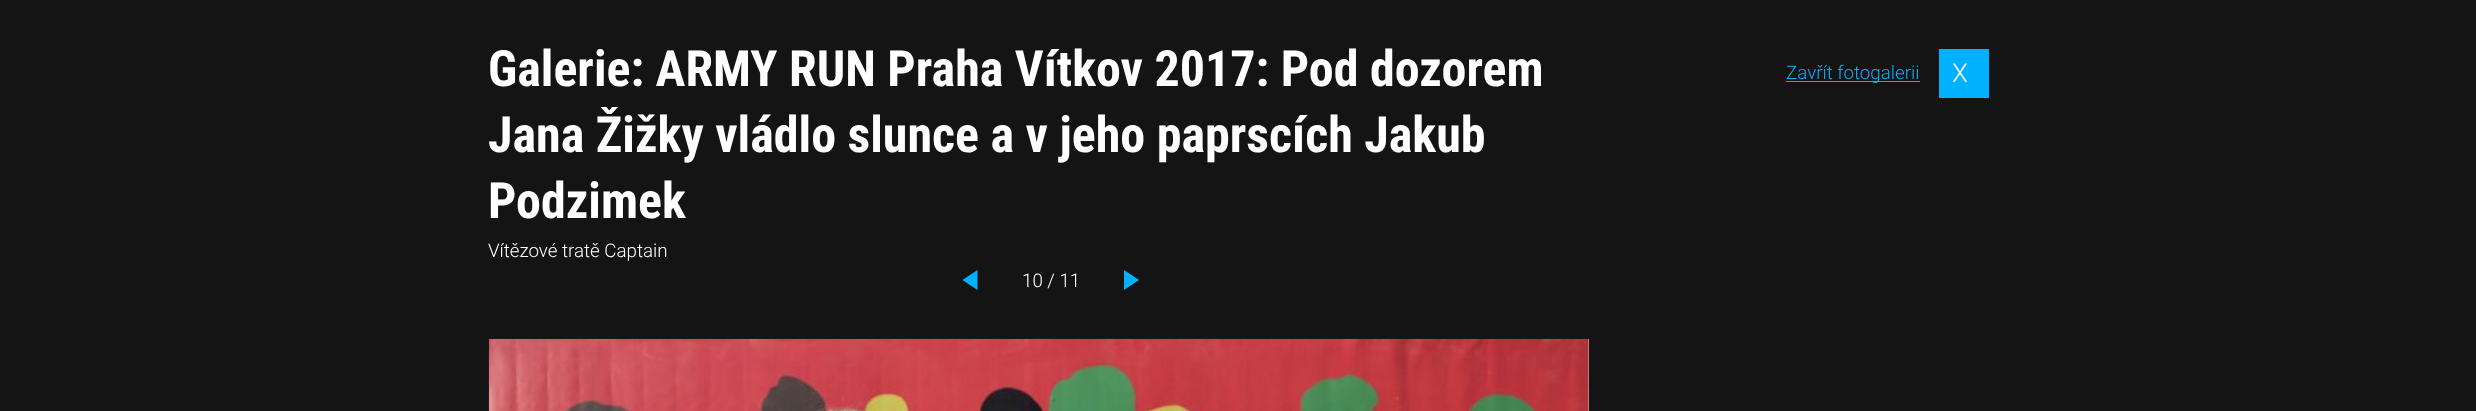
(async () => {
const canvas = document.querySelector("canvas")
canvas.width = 2476
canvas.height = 411
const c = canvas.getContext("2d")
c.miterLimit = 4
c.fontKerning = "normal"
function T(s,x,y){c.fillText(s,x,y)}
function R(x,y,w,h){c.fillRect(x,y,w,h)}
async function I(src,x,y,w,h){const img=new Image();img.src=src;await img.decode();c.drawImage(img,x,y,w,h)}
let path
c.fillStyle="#141414"
R(0,0,2476,411)
c.font="bold 50px Roboto Condensed"
c.fillStyle="#fff"
T("Galerie: ARMY RUN Praha Vítkov 2017: Pod dozorem",488,86)
T("Jana Žižky vládlo slunce a v jeho paprscích Jakub",488,152)
T("Podzimek",488,218)
c.font="300 18.75px Roboto"
T("Vítězové tratě Captain",488,257)
c.fillStyle="#00b1ff"
path = new Path2D("M977.5 270v20l-15-10z")
c.fill(path)
c.fillStyle="#fff"
T("10 / 11",1022,287)
c.fillStyle="#00b1ff"
path = new Path2D("M1124 290v-20l15 10z")
c.fill(path)
R(1786,81,134,1)
T("Zavřít fotogalerii",1786,79)
R(1939,49,50,49)
c.letterSpacing="7px"
c.font="300 26px Roboto"
c.fillStyle="#fff"
T("X",1952,82)
c.fillStyle="#dadada"
R(1588,339,1,72)
await I("1.png",488,338,1101,73)
})()
